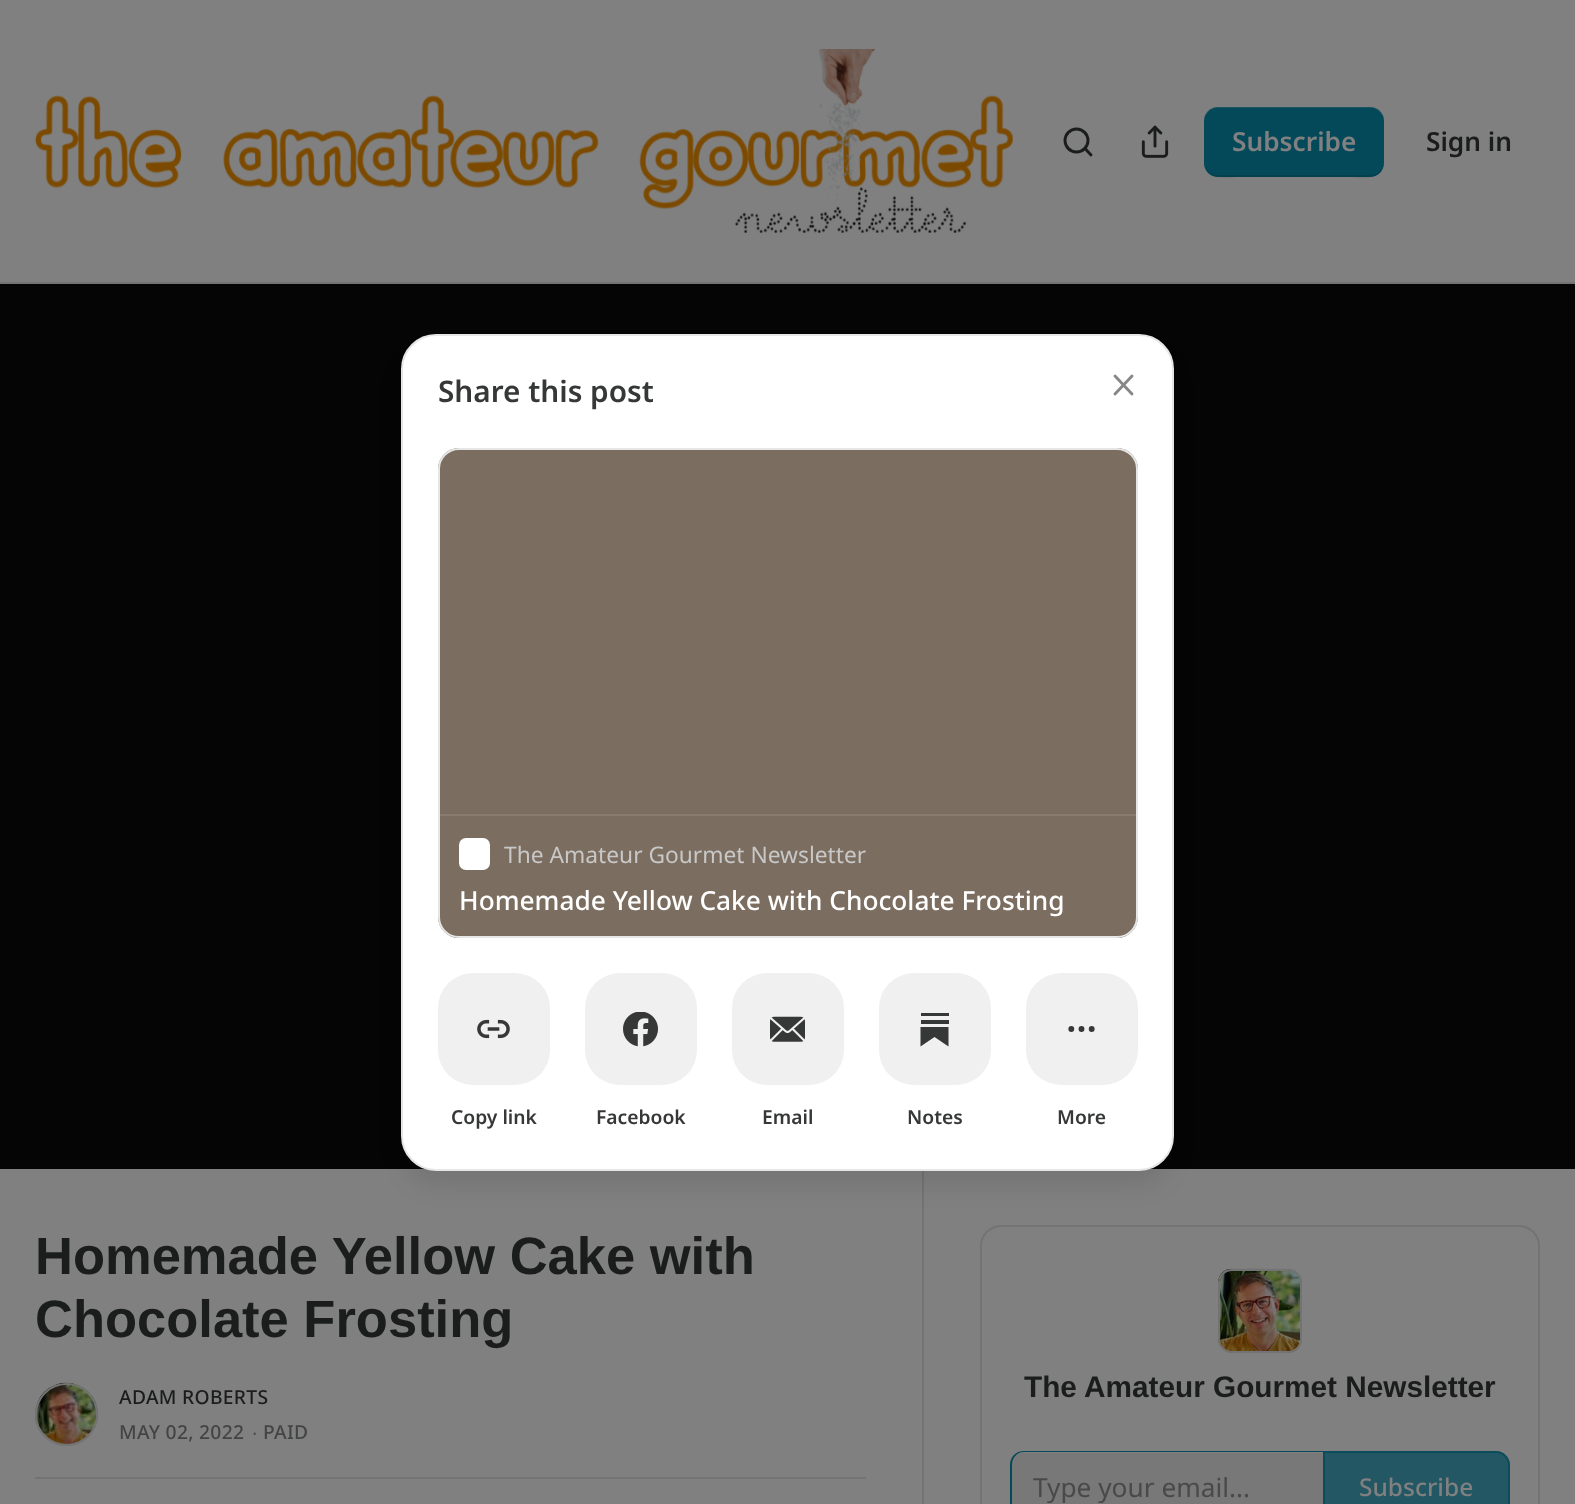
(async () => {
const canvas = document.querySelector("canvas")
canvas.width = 1575
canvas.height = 1504
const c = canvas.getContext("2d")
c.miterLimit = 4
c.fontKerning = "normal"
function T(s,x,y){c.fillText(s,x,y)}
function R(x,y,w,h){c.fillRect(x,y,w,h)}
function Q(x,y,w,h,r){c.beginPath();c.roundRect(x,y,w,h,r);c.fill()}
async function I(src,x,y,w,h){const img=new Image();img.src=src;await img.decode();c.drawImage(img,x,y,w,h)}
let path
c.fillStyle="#808080"
R(0,0,1575,1504)
c.fillStyle="#737373"
R(0,282,1575,2)
await I("1.png",35,49,978,184)
c.beginPath()
c.arc(1076.5,140.5,11.5,0,7)
c.strokeStyle="#1b1c1c"
c.lineWidth=2.9
c.stroke()
path = new Path2D("M1091 155l-6-6.5")
c.lineCap="round"
c.lineJoin="round"
c.stroke(path)
await I("2.png",1141,125,28,33)
c.fillStyle="#044959"
Q(1204,107,180,70,14)
c.fillStyle="#0000001a"
path = new Path2D("M1204 161c0 22 24 16 39 16h102c15 0 39 6 39-16c0 8-6 14-14 14h-152c-8 0-14-6-14-14z")
c.fill(path)
c.fillStyle="#80808033"
path = new Path2D("M1218 108h152c8 0 14 7 14 14c0-21-27-15-39-15h-102c-12 0-39-6-39 15c0-7 6-14 14-14z")
c.fill(path)
c.font="600 26.25px Noto Sans"
c.fillStyle="#808080"
T("Subscribe",1232,151)
c.fillStyle="#1b1c1c"
T("Sign in",1426,151)
c.fillStyle="#050505"
R(0,284,1575,885)
c.font="bold 52.5px Liberation Sans"
c.fillStyle="#1b1c1c"
T("Homemade Yellow Cake with",35,1274)
T("Chocolate Frosting",35,1337)
c.beginPath()
c.arc(66.5,1414.5,30.5,0,7)
c.strokeStyle="#737373"
c.lineWidth=2
c.stroke()
await I("3.png",35,1382,63,64)
c.beginPath()
c.arc(66.5,1414.5,30.5,0,7)
c.stroke()
c.letterSpacing="0.3px"
c.font="500 19.25px Noto Sans"
T("ADAM ROBERTS",119,1404)
c.fillStyle="#434444"
T("MAY 02, 2022",119,1439)
c.font="19.25px Liberation Sans"
T("∙",252,1439)
c.font="500 19.25px Noto Sans"
T("PAID",263,1439)
c.fillStyle="#737373"
R(35,1477,831,2)
R(922,1169,2,335)
c.beginPath()
c.roundRect(981,1226,558,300,20)
c.lineJoin="miter"
c.stroke()
await I("4.png",1218,1268,84,85)
c.beginPath()
c.roundRect(1219,1270,82,82,13)
c.stroke()
c.letterSpacing="0px"
c.font="bold 29.75px Liberation Sans"
c.fillStyle="#1b1c1c"
T("The Amateur Gourmet Newsletter",1024,1397)
c.fillStyle="#787878"
path = new Path2D("M1024 1453h299v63h-299c-6.5 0-12-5.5-12-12v-39c0-6.5 5.5-12 12-12z")
c.fill(path)
c.fillStyle="#044959"
path = new Path2D("M1024 1451h299v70h-299c-8 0-14-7-14-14v-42c0-8 6-14 14-14zm0 1h299v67h-299c-7 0-12-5-12-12v-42c0-7 5-13 12-13z")
c.fill(path,"evenodd")
c.save()
c.beginPath()
c.rect(1033,1468,290,35)
c.clip()
c.font="26.25px Noto Sans"
c.fillStyle="#494949"
T("Type your email...",1033,1497)
c.restore()
c.fillStyle="#044959bf"
path = new Path2D("M1323 1451h173c7.5 0 14 6.5 14 14v39c0 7.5-6.5 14-14 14h-173z")
c.fill(path)
path = new Path2D("M1324 1452h172c7 0 13 6 13 13v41c0 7-6 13-13 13h-172z")
c.strokeStyle="#044959bf"
c.stroke(path)
c.font="500 24.5px Noto Sans"
c.fillStyle="#808080"
T("Subscribe",1359,1496)
c.fillStyle="#0000001a"
c.filter="blur(13px)"
c.beginPath()
c.roundRect(406,357,763,826,30)
c.fill()
c.filter="none"
c.fillStyle="#fff"
c.beginPath()
c.roundRect(402,335,771,835,34)
c.fill()
c.strokeStyle="#e6e6e6"
c.stroke()
c.font="600 29.75px Noto Sans"
c.fillStyle="#363737"
T("Share this post",438,402)
path = new Path2D("M1132 376l-17 18m0-18l17 18")
c.strokeStyle="#868787"
c.lineWidth=2.9
c.lineJoin="round"
c.stroke(path)
c.fillStyle="#f0f0f0"
Q(438,448,700,490,21)
c.fillStyle="#54422fbf"
Q(438,448,700,490,21)
c.fillStyle="#887c6f"
R(438,814,700,2)
c.fillStyle="#fff"
Q(459,838,31,32,7)
c.beginPath()
c.roundRect(439,449,698,488,20)
c.strokeStyle="#e6e6e6"
c.lineWidth=2
c.lineJoin="miter"
c.stroke()
c.font="22.75px Noto Sans"
c.fillStyle="#c8c8c8"
T("The Amateur Gourmet Newsletter",504,863)
c.font="500 26.25px Noto Sans"
c.fillStyle="#fff"
T("Homemade Yellow Cake with Chocolate Frosting",459,910)
c.fillStyle="#f0f0f0"
Q(438,973,112,112,35)
await I("5.png",477,1019,33,20)
c.font="600 19.25px Noto Sans"
c.fillStyle="#363737"
T("Copy link",451,1124)
c.fillStyle="#f0f0f0"
Q(585,973,112,112,35)
await I("6.png",623,1012,35,35)
c.fillStyle="#363737"
T("Facebook",596,1124)
c.fillStyle="#f0f0f0"
Q(732,973,112,112,35)
await I("7.png",770,1016,35,26)
c.fillStyle="#363737"
T("Email",762,1124)
c.fillStyle="#f0f0f0"
Q(879,973,112,112,35)
c.fillStyle="#363737"
R(921,1013,28,3)
R(921,1020,28,4)
path = new Path2D("M920.5 1027v19.5l14-9.5l14 9.5v-19.5z")
c.fill(path)
T("Notes",907,1124)
c.fillStyle="#f0f0f0"
Q(1026,973,112,112,35)
c.beginPath()
c.arc(1081.5,1029,1.5,0,7)
c.strokeStyle="#363737"
c.lineWidth=2.9
c.stroke()
c.beginPath()
c.arc(1091.7,1029,1.5,0,7)
c.stroke()
c.beginPath()
c.arc(1071.3,1029,1.5,0,7)
c.stroke()
c.fillStyle="#363737"
T("More",1057,1124)
})()
